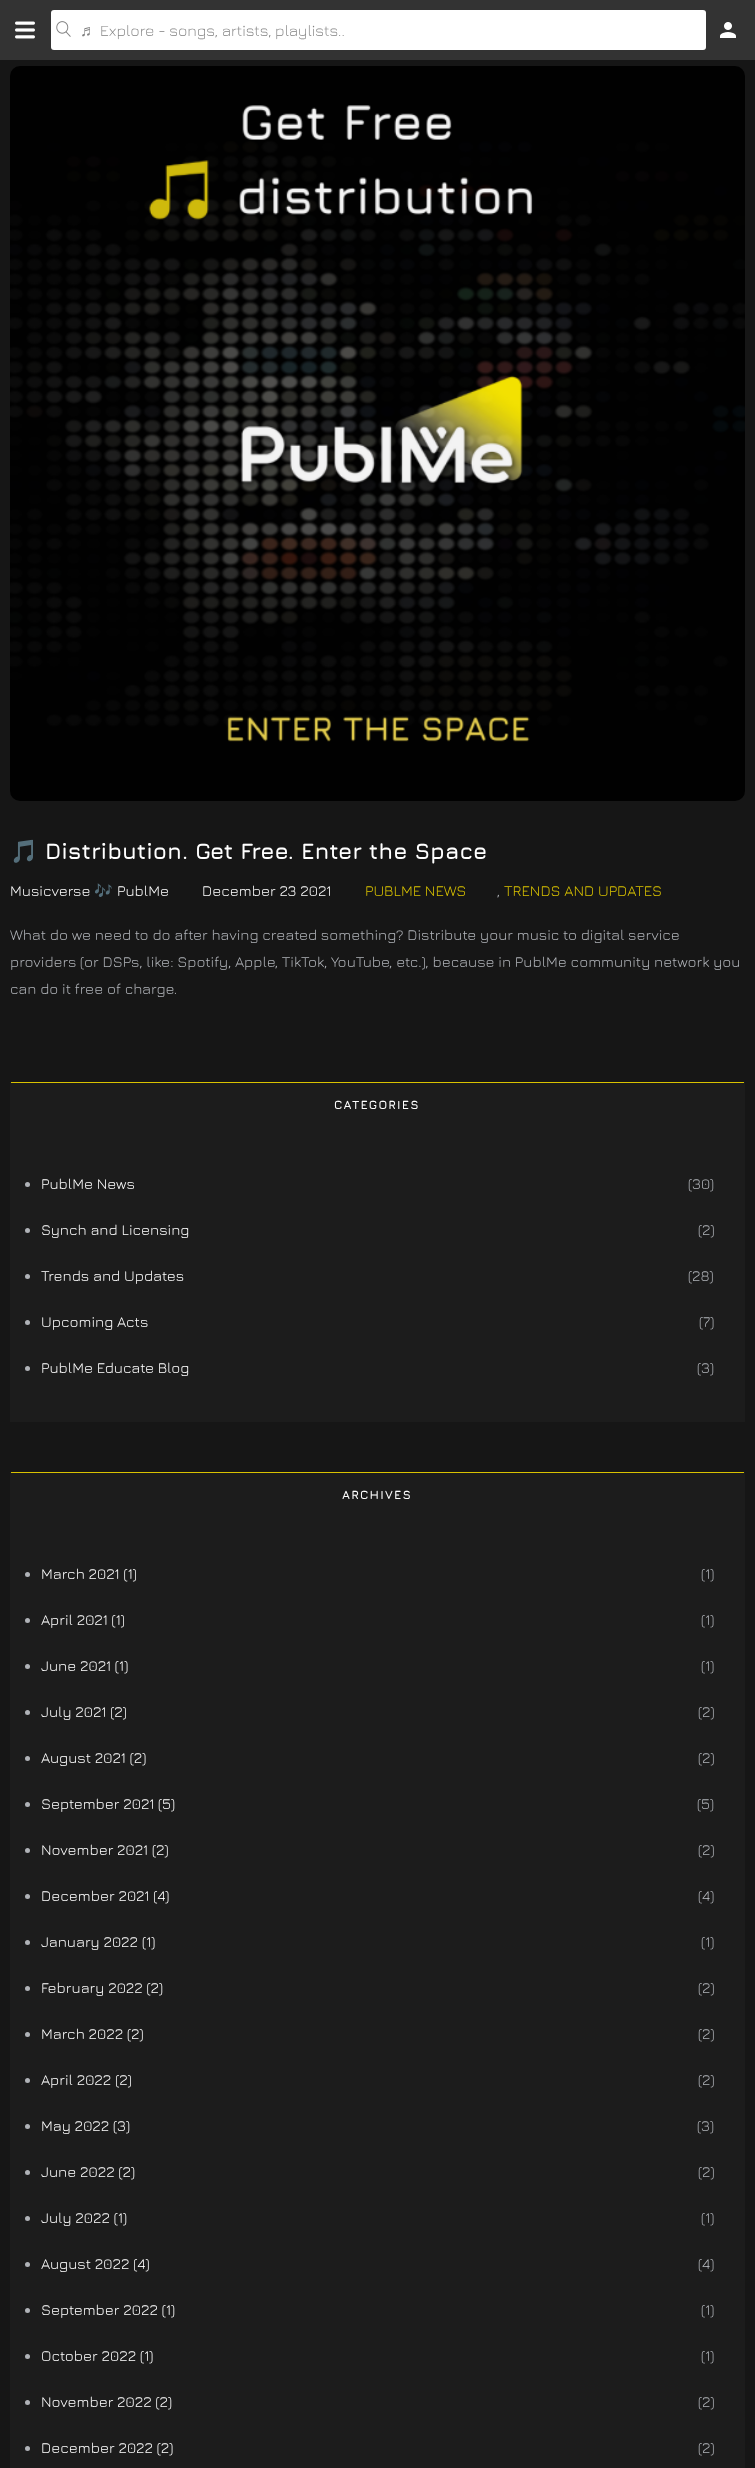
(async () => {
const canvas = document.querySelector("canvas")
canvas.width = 755
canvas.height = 2468
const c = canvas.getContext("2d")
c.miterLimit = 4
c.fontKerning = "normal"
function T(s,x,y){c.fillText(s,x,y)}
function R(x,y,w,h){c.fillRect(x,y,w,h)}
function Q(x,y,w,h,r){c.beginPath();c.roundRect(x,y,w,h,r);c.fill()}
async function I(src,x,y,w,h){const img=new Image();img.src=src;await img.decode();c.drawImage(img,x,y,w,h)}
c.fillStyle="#161616"
R(0,0,755,2468)
c.fillStyle="#333"
R(0,0,755,60)
await I("1.png",15,21,20,18)
c.fillStyle="#fff"
Q(51,10,655,40,3)
await I("2.png",56,21,15,16)
c.font="16px Liberation Sans"
c.fillStyle="#818181"
T("♬",80,36)
c.font="300 16px Jura"
T("Explore - songs, artists, playlists..",100,36)
await I("3.png",720,22,16,16)
await I("4.png",10,66,735,735)
c.font="bold 22.5px Noto Color Emoji"
c.fillStyle="#fff"
T("🎵",10,859)
c.font="bold 22.5px Jura"
T("Distribution. Get Free. Enter the Space",45,859)
c.font="15px Jura"
T("Musicverse",10,896)
c.font="15px Noto Color Emoji"
T("🎶",94,896)
c.font="15px Jura"
T("PublMe",117,896)
T("December 23 2021",202,896)
c.fillStyle="#d9c200"
T("PUBLME NEWS",365,896)
c.fillStyle="#b0b3b8"
T(",",497,896)
c.fillStyle="#d9c200"
T("TRENDS AND UPDATES",504,896)
c.fillStyle="#b0b3b8"
T("What do we need to do after having created something? Distribute your music to digital service",10,940)
T("providers (or DSPs, like: Spotify, Apple, TikTok, YouTube, etc.), because in PublMe community network you",10,967)
T("can do it free of charge.",10,994)
c.fillStyle="#1c1c1c"
R(10,1083,735,339)
c.fillStyle="#d9c200"
R(10,1082,735,1)
c.fillStyle="#1c1c1c"
R(744,1082,1,1)
R(10,1082,1,1)
c.letterSpacing="1.25px"
c.font="bold 12px Jura"
c.fillStyle="#fff"
T("CATEGORIES",334,1109)
c.fillStyle="#b0b3b8"
c.beginPath()
c.arc(27.5,1184.5,2.5,0,7)
c.fill()
c.letterSpacing="0px"
c.font="15px Jura"
c.fillStyle="#fff"
T("PublMe News",41,1189)
c.fillStyle="#b0b3b8"
T("(30)",688,1189)
c.beginPath()
c.arc(27.5,1230.5,2.5,0,7)
c.fill()
c.fillStyle="#fff"
T("Synch and Licensing",41,1235)
c.fillStyle="#b0b3b8"
T("(2)",698,1235)
c.beginPath()
c.arc(27.5,1276.5,2.5,0,7)
c.fill()
c.fillStyle="#fff"
T("Trends and Updates",41,1281)
c.fillStyle="#b0b3b8"
T("(28)",688,1281)
c.beginPath()
c.arc(27.5,1322.5,2.5,0,7)
c.fill()
c.fillStyle="#fff"
T("Upcoming Acts",41,1327)
c.fillStyle="#b0b3b8"
T("(7)",699,1327)
c.beginPath()
c.arc(27.5,1368.5,2.5,0,7)
c.fill()
c.fillStyle="#fff"
T("PublMe Educate Blog",41,1373)
c.fillStyle="#b0b3b8"
T("(3)",697,1373)
c.fillStyle="#1c1c1c"
R(10,1473,735,995)
c.fillStyle="#d9c200"
R(10,1472,735,1)
c.fillStyle="#1c1c1c"
R(744,1472,1,1)
R(10,1472,1,1)
c.letterSpacing="1.25px"
c.font="bold 12px Jura"
c.fillStyle="#fff"
T("ARCHIVES",342,1499)
c.fillStyle="#b0b3b8"
c.beginPath()
c.arc(27.5,1574.5,2.5,0,7)
c.fill()
c.letterSpacing="0px"
c.font="15px Jura"
c.fillStyle="#fff"
T("March 2021 (1)",41,1579)
c.fillStyle="#b0b3b8"
T("(1)",701,1579)
c.beginPath()
c.arc(27.5,1620.5,2.5,0,7)
c.fill()
c.fillStyle="#fff"
T("April 2021 (1)",41,1625)
c.fillStyle="#b0b3b8"
T("(1)",701,1625)
c.beginPath()
c.arc(27.5,1666.5,2.5,0,7)
c.fill()
c.fillStyle="#fff"
T("June 2021 (1)",41,1671)
c.fillStyle="#b0b3b8"
T("(1)",701,1671)
c.beginPath()
c.arc(27.5,1712.5,2.5,0,7)
c.fill()
c.fillStyle="#fff"
T("July 2021 (2)",41,1717)
c.fillStyle="#b0b3b8"
T("(2)",698,1717)
c.beginPath()
c.arc(27.5,1758.5,2.5,0,7)
c.fill()
c.fillStyle="#fff"
T("August 2021 (2)",41,1763)
c.fillStyle="#b0b3b8"
T("(2)",698,1763)
c.beginPath()
c.arc(27.5,1804.5,2.5,0,7)
c.fill()
c.fillStyle="#fff"
T("September 2021 (5)",41,1809)
c.fillStyle="#b0b3b8"
T("(5)",697,1809)
c.beginPath()
c.arc(27.5,1850.5,2.5,0,7)
c.fill()
c.fillStyle="#fff"
T("November 2021 (2)",41,1855)
c.fillStyle="#b0b3b8"
T("(2)",698,1855)
c.beginPath()
c.arc(27.5,1896.5,2.5,0,7)
c.fill()
c.fillStyle="#fff"
T("December 2021 (4)",41,1901)
c.fillStyle="#b0b3b8"
T("(4)",698,1901)
c.beginPath()
c.arc(27.5,1942.5,2.5,0,7)
c.fill()
c.fillStyle="#fff"
T("January 2022 (1)",41,1947)
c.fillStyle="#b0b3b8"
T("(1)",701,1947)
c.beginPath()
c.arc(27.5,1988.5,2.5,0,7)
c.fill()
c.fillStyle="#fff"
T("February 2022 (2)",41,1993)
c.fillStyle="#b0b3b8"
T("(2)",698,1993)
c.beginPath()
c.arc(27.5,2034.5,2.5,0,7)
c.fill()
c.fillStyle="#fff"
T("March 2022 (2)",41,2039)
c.fillStyle="#b0b3b8"
T("(2)",698,2039)
c.beginPath()
c.arc(27.5,2080.5,2.5,0,7)
c.fill()
c.fillStyle="#fff"
T("April 2022 (2)",41,2085)
c.fillStyle="#b0b3b8"
T("(2)",698,2085)
c.beginPath()
c.arc(27.5,2126.5,2.5,0,7)
c.fill()
c.fillStyle="#fff"
T("May 2022 (3)",41,2131)
c.fillStyle="#b0b3b8"
T("(3)",697,2131)
c.beginPath()
c.arc(27.5,2172.5,2.5,0,7)
c.fill()
c.fillStyle="#fff"
T("June 2022 (2)",41,2177)
c.fillStyle="#b0b3b8"
T("(2)",698,2177)
c.beginPath()
c.arc(27.5,2218.5,2.5,0,7)
c.fill()
c.fillStyle="#fff"
T("July 2022 (1)",41,2223)
c.fillStyle="#b0b3b8"
T("(1)",701,2223)
c.beginPath()
c.arc(27.5,2264.5,2.5,0,7)
c.fill()
c.fillStyle="#fff"
T("August 2022 (4)",41,2269)
c.fillStyle="#b0b3b8"
T("(4)",698,2269)
c.beginPath()
c.arc(27.5,2310.5,2.5,0,7)
c.fill()
c.fillStyle="#fff"
T("September 2022 (1)",41,2315)
c.fillStyle="#b0b3b8"
T("(1)",701,2315)
c.beginPath()
c.arc(27.5,2356.5,2.5,0,7)
c.fill()
c.fillStyle="#fff"
T("October 2022 (1)",41,2361)
c.fillStyle="#b0b3b8"
T("(1)",701,2361)
c.beginPath()
c.arc(27.5,2402.5,2.5,0,7)
c.fill()
c.fillStyle="#fff"
T("November 2022 (2)",41,2407)
c.fillStyle="#b0b3b8"
T("(2)",698,2407)
c.beginPath()
c.arc(27.5,2448.5,2.5,0,7)
c.fill()
c.fillStyle="#fff"
T("December 2022 (2)",41,2453)
c.fillStyle="#b0b3b8"
T("(2)",698,2453)
})()
